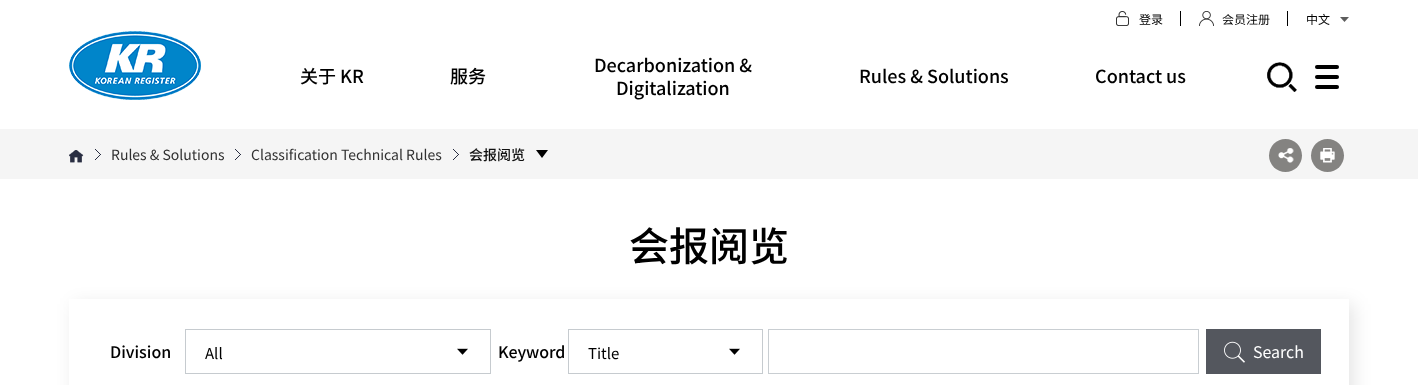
(async () => {
const canvas = document.querySelector("canvas")
canvas.width = 1418
canvas.height = 385
const c = canvas.getContext("2d")
c.miterLimit = 4
c.fontKerning = "normal"
function T(s,x,y){c.fillText(s,x,y)}
function R(x,y,w,h){c.fillRect(x,y,w,h)}
function Q(x,y,w,h,r){c.beginPath();c.roundRect(x,y,w,h,r);c.fill()}
async function I(src,x,y,w,h){const img=new Image();img.src=src;await img.decode();c.drawImage(img,x,y,w,h)}
let path
c.fillStyle="#fff"
R(0,0,1418,385)
await I("1.png",1116,11,13,15)
c.font="12px Noto Sans SC"
c.fillStyle="#000"
T("登录",1139,24)
R(1180,11,1,15)
await I("2.png",1199,11,15,15)
T("会员注册",1222,24)
R(1287,11,1,15)
T("中文",1306,24)
await I("3.png",1340,17,9,5)
await I("4.png",69,31,132,69)
c.font="500 18px Noto Sans SC"
T("关于 KR",300,83)
T("服务",450,83)
T("Decarbonization &",594,72)
T("Digitalization",616,95)
T("Rules & Solutions",859,83)
T("Contact us",1095,83)
await I("5.png",1267,62,30,30)
Q(1315,65,24,4,2)
Q(1315,75,24,4,2)
Q(1315,85,24,4,2)
c.fillStyle="#f5f5f5"
R(0,129,1418,50)
await I("6.png",69,150,15,13)
await I("7.png",95,149,6,11)
c.font="14px Noto Sans SC"
c.fillStyle="#303030"
T("Rules & Solutions",111,160)
await I("7.png",235,149,6,11)
T("Classification Technical Rules",251,160)
await I("7.png",453,149,6,11)
c.font="500 14px Noto Sans SC"
c.fillStyle="#111"
T("会报阅览",469,160)
c.fillStyle="#000"
path = new Path2D("M536 150l6 8l6-8z")
c.fill(path)
c.fillStyle="#848381"
c.beginPath()
c.arc(1285.5,155.5,16.5,0,7)
c.fill()
await I("8.png",1278,148,16,15)
c.beginPath()
c.arc(1327.5,155.5,16.5,0,7)
c.fill()
await I("9.png",1320,148,15,15)
c.font="500 40px Noto Sans SC"
c.fillStyle="#000"
T("会报阅览",629,261)
c.save()
path = new Path2D("M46 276h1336v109h-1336zm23 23h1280v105h-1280z")
c.clip(path,"evenodd")
c.fillStyle="#0000001a"
c.filter="blur(9px)"
c.beginPath()
c.rect(74,304,1280,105)
c.fill()
c.filter="none"
c.restore()
c.font="500 16px Noto Sans SC"
T("Division",110,358)
await I("10.png",457,348,11,7)
c.strokeStyle="#c6cbcf"
c.strokeRect(185.5,329.5,305,44)
c.font="15px Noto Sans SC"
T("All",205,359)
c.font="500 16px Noto Sans SC"
T("Keyword",498,358)
await I("10.png",729,348,11,7)
c.strokeRect(568.5,329.5,194,44)
c.font="15px Noto Sans SC"
T("Title",588,359)
c.strokeStyle="#c9ced2"
c.strokeRect(768.5,329.5,430,44)
c.fillStyle="#54575e"
R(1206,329,115,45)
await I("11.png",1224,341,21,22)
c.font="16px Noto Sans SC"
c.fillStyle="#fff"
T("Search",1253,358)
})()
